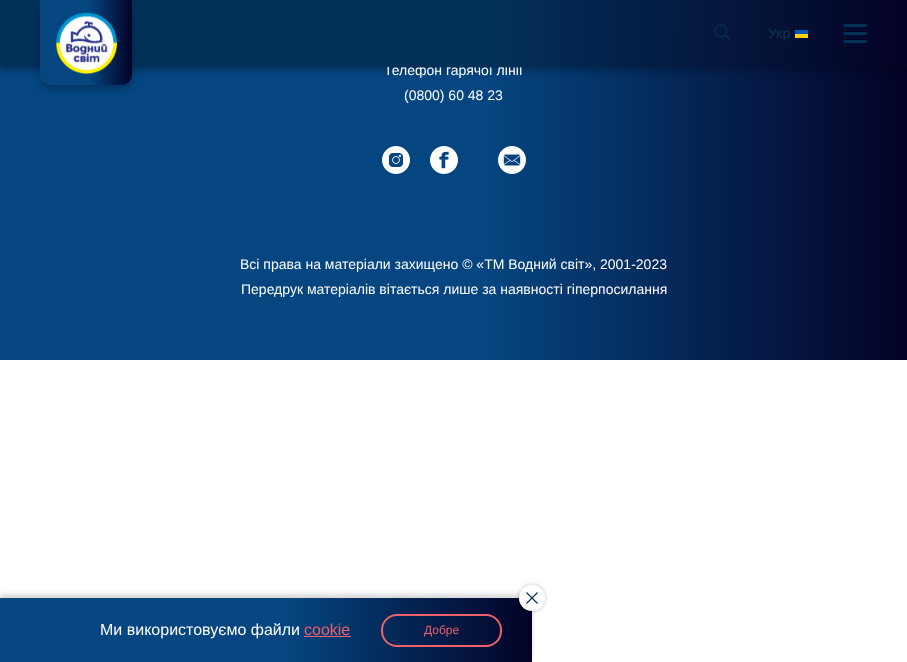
(async () => {
const canvas = document.querySelector("canvas")
canvas.width = 907
canvas.height = 662
const c = canvas.getContext("2d")
c.miterLimit = 4
c.fontKerning = "normal"
function T(s,x,y){c.fillText(s,x,y)}
function R(x,y,w,h){c.fillRect(x,y,w,h)}
function Q(x,y,w,h,r){c.beginPath();c.roundRect(x,y,w,h,r);c.fill()}
async function I(src,x,y,w,h){const img=new Image();img.src=src;await img.decode();c.drawImage(img,x,y,w,h)}
let gradient
c.fillStyle="#fff"
R(0,0,907,662)
gradient = c.createLinearGradient(-.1,180,907,180)
gradient.addColorStop(.54,"#054580")
gradient.addColorStop(1,"#040226")
gradient.addColorStop(1,"#043766")
c.fillStyle = gradient
R(0,67,907,293)
c.fillStyle="#00000040"
c.filter="blur(3.5px)"
c.beginPath()
c.rect(0,4,907,67)
c.fill()
c.filter="none"
c.font="14px Liberation Sans"
c.fillStyle="#fff"
T("Телефон гарячої лінії",384,75)
gradient = c.createLinearGradient(-.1,33,907,34)
gradient.addColorStop(.54,"#033059")
gradient.addColorStop(1,"#040226")
gradient.addColorStop(1,"#032240")
c.fillStyle = gradient
R(0,0,907,67)
c.fillStyle="#00000040"
c.filter="blur(3.5px)"
c.beginPath()
c.roundRect(40,4,92,85,10)
c.fill()
c.filter="none"
gradient = c.createLinearGradient(40,42,132,43)
gradient.addColorStop(.54,"#054580")
gradient.addColorStop(1,"#040226")
gradient.addColorStop(1,"#043766")
c.fillStyle = gradient
c.beginPath()
c.roundRect(40,0,92,85,[0,0,10,10])
c.fill()
await I("1.png",55,12,62,62)
await I("2.png",714,24,16,16)
c.fillStyle="#10394e"
T("Укр",768,38)
await I("3.png",795,30,13,8)
c.fillStyle="#033059"
Q(843,24,24,3,1.5)
Q(843,32,24,3,1.5)
Q(843,40,24,3,1.5)
c.fillStyle="#fff"
T("(0800) 60 48 23",404,100)
await I("4.png",382,146,28,28)
await I("5.png",430,146,28,28)
await I("6.png",498,146,28,28)
T("Всі права на матеріали захищено © «ТМ Водний світ», 2001-2023",240,269)
T("Передрук матеріалів вітається лише за наявності гіперпосилання",241,294)
c.fillStyle="#00000026"
c.filter="blur(2px)"
c.beginPath()
c.rect(0,594,532,64)
c.fill()
c.filter="none"
gradient = c.createLinearGradient(-.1,629,532,631)
gradient.addColorStop(.54,"#054580")
gradient.addColorStop(1,"#040226")
gradient.addColorStop(1,"#043766")
c.fillStyle = gradient
R(0,598,532,64)
c.fillStyle="#00000040"
c.filter="blur(2px)"
c.beginPath()
c.roundRect(519,585,26,26,13)
c.fill()
c.filter="none"
c.fillStyle="#fff"
c.beginPath()
c.arc(532,598,13,0,7)
c.fill()
await I("7.png",526,592,12,12)
c.font="16px Liberation Sans"
T("Ми використовуємо файли",100,635)
c.fillStyle="#eb626d"
T("cookie",304,635)
R(304,636,47,1)
c.beginPath()
c.roundRect(382,615,119,31,15)
c.strokeStyle="#eb626d"
c.lineWidth=2
c.stroke()
c.font="12px Liberation Sans"
T("Добре",424,634)
})()
